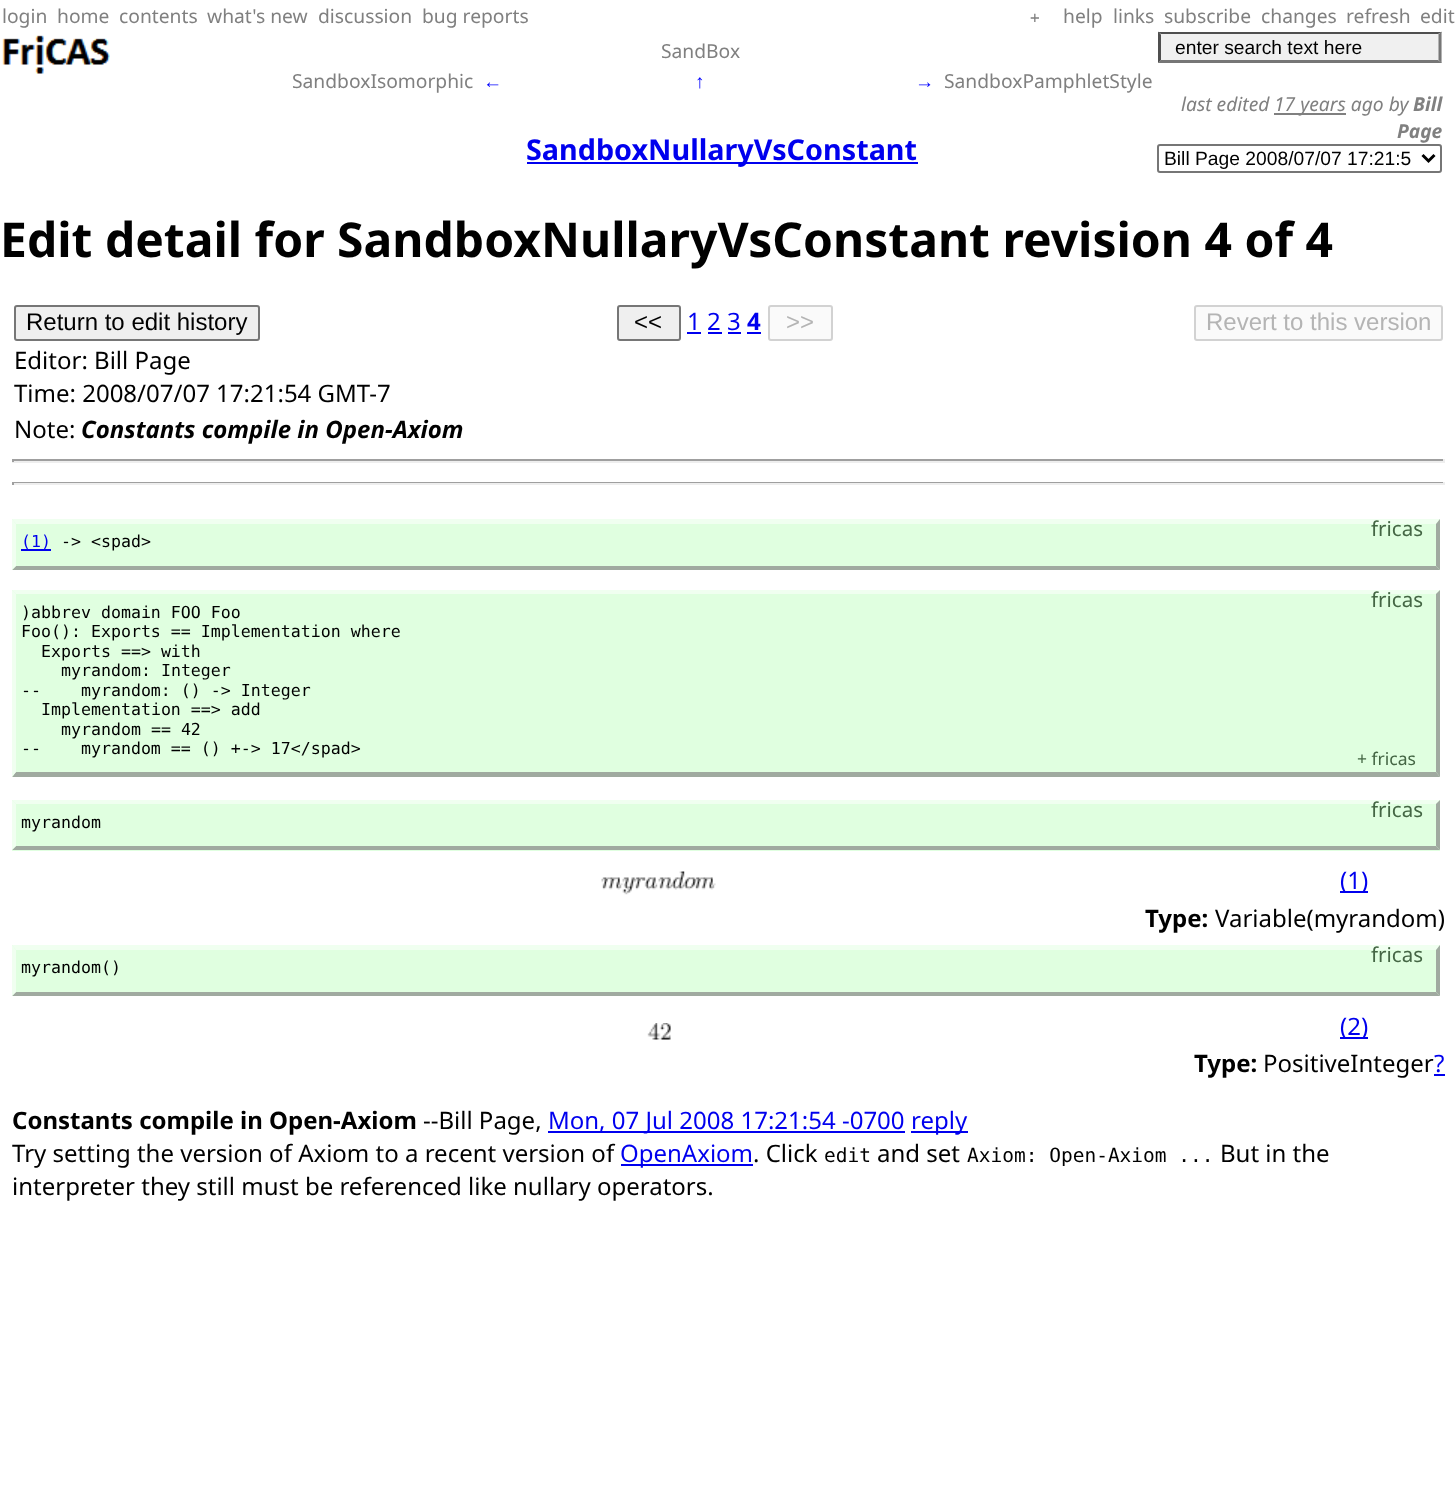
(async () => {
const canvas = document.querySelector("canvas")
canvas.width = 1456
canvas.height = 1506
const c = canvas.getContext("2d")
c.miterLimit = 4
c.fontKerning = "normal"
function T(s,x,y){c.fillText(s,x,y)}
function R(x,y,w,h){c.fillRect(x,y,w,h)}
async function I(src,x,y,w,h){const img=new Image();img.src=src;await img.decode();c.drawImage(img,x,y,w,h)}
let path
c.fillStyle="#fff"
R(0,0,1456,1506)
c.font="19.25px Noto Sans"
c.fillStyle="#808080"
T("login",2,23)
T("home",57,23)
T("contents",119,23)
T("what's new",207,23)
T("discussion",318,23)
T("bug reports",422,23)
c.font="16px DejaVu Sans Mono"
T("+",1030,23)
c.font="19.25px Noto Sans"
T("help",1063,23)
T("links",1113,23)
T("subscribe",1164,23)
T("changes",1261,23)
T("refresh",1346,23)
T("edit",1420,23)
await I("1.png",2,35,108,39)
T("SandBox",661,58)
T("SandboxIsomorphic",292,88)
c.font="19.25px Liberation Sans"
c.fillStyle="#00f"
T("←",483,88)
T("↑",695,88)
T("→",915,88)
c.font="19.25px Noto Sans"
c.fillStyle="#808080"
T("SandboxPamphletStyle",944,88)
c.fillStyle="#00e"
R(527,162,391,2)
c.font="bold 28.75px Noto Sans"
T("SandboxNullaryVsConstant",526,160)
c.fillStyle="#f0f0f0"
R(1158,32,284,31)
c.fillStyle="#4f4f4f"
path = new Path2D("M1158 32h284l-4 2h-277z")
c.fill(path)
c.fillStyle="#767676"
path = new Path2D("M1441.5 31.5v31.5l-3-3v-25.5z")
c.fill(path)
path = new Path2D("M1442 63h-284l3-3h277z")
c.fill(path)
c.fillStyle="#4f4f4f"
path = new Path2D("M1158 63v-31.5l3 3v25.5z")
c.fill(path)
c.font="19.25px Liberation Sans"
c.fillStyle="#000"
T("enter search text here",1175,54)
c.font="italic 19.25px Noto Sans"
c.fillStyle="#808080"
T("last edited",1181,111)
R(1274,113,72,2)
T("17 years ago by",1274,111)
c.font="italic bold 19.25px Noto Sans"
T("Bill",1413,111)
T("Page",1397,138)
c.beginPath()
c.roundRect(1158,145,283,27,2)
c.strokeStyle="#767676"
c.lineWidth=2
c.stroke()
path = new Path2D("M1422.5 155l6 6l6-6")
c.strokeStyle="#000"
c.lineWidth=3
c.stroke(path)
c.font="19.25px Liberation Sans"
c.fillStyle="#000"
T("Bill Page 2008/07/07 17:21:5",1164,165)
c.font="bold 48px Noto Sans"
T("Edit detail for SandboxNullaryVsConstant revision 4 of 4",0,257)
c.fillStyle="#efefef"
c.beginPath()
c.roundRect(15,306,244,34,2)
c.fill()
c.strokeStyle="#767676"
c.lineWidth=2
c.stroke()
c.font="24px Liberation Sans"
c.fillStyle="#000"
T("Return to edit history",26,330)
c.fillStyle="#efefef"
c.beginPath()
c.roundRect(618,306,62,34,2)
c.fill()
c.stroke()
c.fillStyle="#000"
T("<<",634,330)
c.font="24px Noto Sans"
c.fillStyle="#00e"
T("1 2 3",687,330)
R(687,332,14,2)
c.font="bold 24px Noto Sans"
T("4",747,330)
R(747,332,14,2)
c.fillStyle="#fafafa"
c.beginPath()
c.roundRect(769,306,63,34,2)
c.fill()
c.strokeStyle="#d2d2d2"
c.stroke()
c.font="24px Liberation Sans"
c.fillStyle="#b4b4b4"
T(">>",786,330)
c.fillStyle="#00e"
R(708,332,14,2)
R(728,332,13,2)
c.fillStyle="#fafafa"
c.beginPath()
c.roundRect(1195,306,247,34,2)
c.fill()
c.stroke()
c.fillStyle="#b4b4b4"
T("Revert to this version",1206,330)
c.font="24px Noto Sans"
c.fillStyle="#000"
T("Editor: Bill Page",14,369)
T("Time: 2008/07/07 17:21:54 GMT-7",14,402)
T("Note:",14,438)
c.font="italic bold 24px Noto Sans"
T("Constants compile in Open-Axiom",81,438)
c.fillStyle="#9f9f9f"
R(12,459,1433,2)
c.fillStyle="#eee"
R(1443,459,2,3)
R(12,461,1433,2)
c.fillStyle="#9f9f9f"
R(12,459,2,3)
R(12,482,1433,1)
c.fillStyle="#eee"
R(1443,482,2,3)
R(12,483,1433,2)
c.fillStyle="#9f9f9f"
R(12,482,2,3)
c.fillStyle="#e0ffe0"
R(12,519,1428,51)
c.fillStyle="#f0fff0"
path = new Path2D("M12 519h1428l-4 5h-1420z")
c.fill(path)
c.font="20.5px Noto Sans"
c.fillStyle="#464"
T("fricas",1371,536)
c.fillStyle="#a0aaa0"
path = new Path2D("M1440 519v51l-4-4v-42z")
c.fill(path)
path = new Path2D("M1440 570h-1428l4-4h1420z")
c.fill(path)
c.fillStyle="#f0fff0"
path = new Path2D("M12 570v-51l4 5v42z")
c.fill(path)
c.fillStyle="#00e"
R(21,549,30,2)
c.font="16.6px DejaVu Sans Mono"
T("(1)",21,547)
c.fillStyle="#000"
T("-> <spad>",61,547)
c.fillStyle="#e0ffe0"
R(12,590,1428,187)
c.fillStyle="#f0fff0"
path = new Path2D("M12 590h1428l-4 4h-1420z")
c.fill(path)
c.font="20.5px Noto Sans"
c.fillStyle="#464"
T("fricas",1371,607)
c.fillStyle="#a0aaa0"
path = new Path2D("M1440 590v187l-4-5v-178z")
c.fill(path)
path = new Path2D("M1440 777h-1428l4-5h1420z")
c.fill(path)
c.fillStyle="#f0fff0"
path = new Path2D("M12 777v-187l4 4v178z")
c.fill(path)
c.font="16.6px DejaVu Sans Mono"
c.fillStyle="#000"
T(")abbrev domain FOO Foo",21,618)
T("Foo(): Exports == Implementation where",21,637)
T("Exports ==> with",41,657)
T("myrandom: Integer",61,676)
T("--    myrandom: () -> Integer",21,696)
T("Implementation ==> add",41,715)
T("myrandom == 42",61,735)
T("--    myrandom == () +-> 17<\/spad>",21,754)
c.font="17.5px Noto Sans"
c.fillStyle="#464"
T("+ fricas",1357,765)
c.fillStyle="#e0ffe0"
R(12,800,1428,51)
c.fillStyle="#f0fff0"
path = new Path2D("M12 800h1428l-4 4h-1420z")
c.fill(path)
c.font="20.5px Noto Sans"
c.fillStyle="#464"
T("fricas",1371,817)
c.fillStyle="#a0aaa0"
path = new Path2D("M1440 800v50l-4-4v-42z")
c.fill(path)
path = new Path2D("M1440 850h-1428l4-4h1420z")
c.fill(path)
c.fillStyle="#f0fff0"
path = new Path2D("M12 850v-50l4 4v42z")
c.fill(path)
c.font="16.6px DejaVu Sans Mono"
c.fillStyle="#000"
T("myrandom",21,828)
await I("2.png",601,871,115,24)
c.fillStyle="#00e"
R(1340,891,28,2)
c.font="24px Noto Sans"
T("(1)",1340,889)
c.font="bold 24px Noto Sans"
c.fillStyle="#000"
T("Type:",1145,927)
c.font="24px Noto Sans"
T("Variable(myrandom)",1215,927)
c.fillStyle="#e0ffe0"
R(12,945,1428,51)
c.fillStyle="#f0fff0"
path = new Path2D("M12 945h1428l-4 5h-1420z")
c.fill(path)
c.font="20.5px Noto Sans"
c.fillStyle="#464"
T("fricas",1371,962)
c.fillStyle="#a0aaa0"
path = new Path2D("M1440 945v51l-4-4v-42z")
c.fill(path)
path = new Path2D("M1440 996h-1428l4-4h1420z")
c.fill(path)
c.fillStyle="#f0fff0"
path = new Path2D("M12 996v-51l4 5v42z")
c.fill(path)
c.font="16.6px DejaVu Sans Mono"
c.fillStyle="#000"
T("myrandom()",21,973)
await I("3.png",647,1023,24,17)
c.fillStyle="#00e"
R(1340,1037,28,2)
c.font="24px Noto Sans"
T("(2)",1340,1035)
c.font="bold 24px Noto Sans"
c.fillStyle="#000"
T("Type:",1194,1072)
c.font="24px Noto Sans"
T("PositiveInteger",1263,1072)
c.fillStyle="#00e"
T("?",1434,1072)
R(1434,1074,11,2)
c.font="bold 24px Noto Sans"
c.fillStyle="#000"
T("Constants compile in Open-Axiom",12,1129)
c.font="24px Noto Sans"
T("--Bill Page,",423,1129)
c.fillStyle="#00e"
R(548,1131,357,2)
T("Mon, 07 Jul 2008 17:21:54 -0700",548,1129)
R(911,1131,57,2)
T("reply",911,1129)
c.fillStyle="#000"
T("Try setting the version of Axiom to a recent version of",12,1162)
c.fillStyle="#00e"
R(621,1164,132,2)
T("OpenAxiom",620,1162)
c.fillStyle="#000"
T(". Click",753,1162)
c.font="19.5px DejaVu Sans Mono"
T("edit",824,1162)
c.font="24px Noto Sans"
T("and set",877,1162)
c.font="19.5px DejaVu Sans Mono"
T("Axiom: Open-Axiom ...",967,1162)
c.font="24px Noto Sans"
T("But in the",1220,1162)
T("interpreter they still must be referenced like nullary operators.",12,1195)
})()
